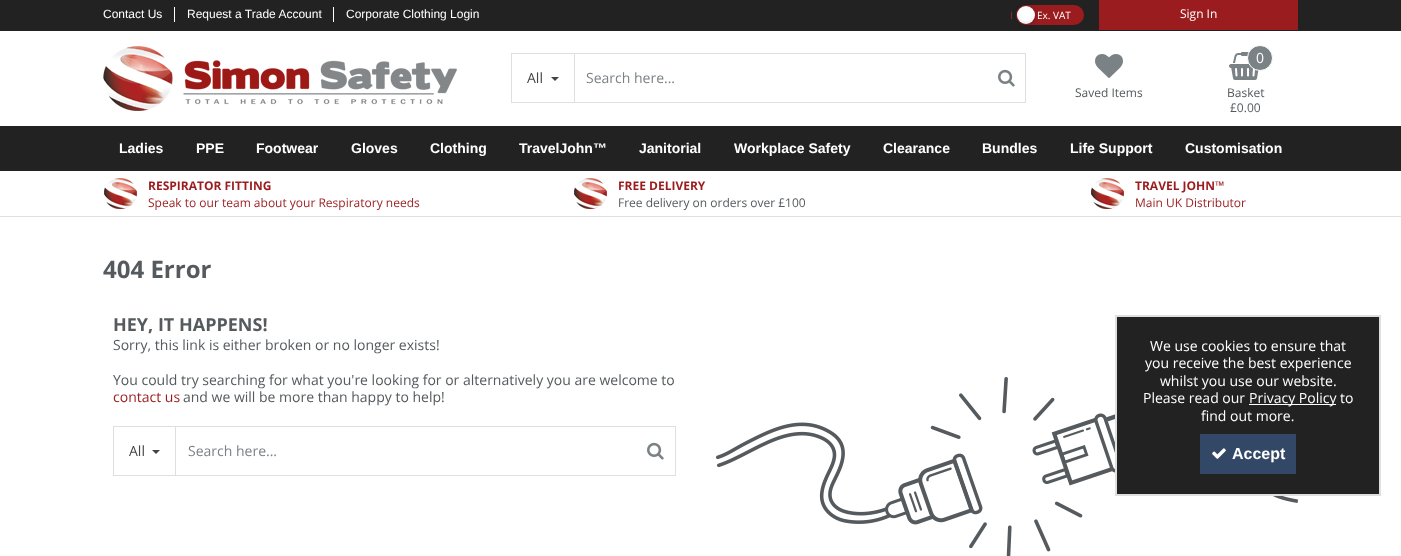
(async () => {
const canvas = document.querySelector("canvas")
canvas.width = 1401
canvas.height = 556
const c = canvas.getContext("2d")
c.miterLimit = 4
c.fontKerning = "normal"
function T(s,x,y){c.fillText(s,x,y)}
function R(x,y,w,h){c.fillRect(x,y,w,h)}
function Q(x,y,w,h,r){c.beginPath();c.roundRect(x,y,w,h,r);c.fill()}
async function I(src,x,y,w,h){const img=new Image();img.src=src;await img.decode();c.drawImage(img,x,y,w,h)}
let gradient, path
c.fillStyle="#fff"
R(0,0,1401,556)
c.fillStyle="#222"
R(0,0,1401,31)
c.fillStyle="#fff"
R(174,7,1,15)
c.font="12px Liberation Sans"
T("Contact Us",103,18)
R(333,7,1,15)
T("Request a Trade Account",187,18)
T("Corporate Clothing Login",346,18)
c.fillStyle="#9b1c1f"
Q(1016,5,68,20,10)
c.fillStyle="#00000033"
c.filter="blur(2.5px)"
c.beginPath()
c.roundRect(1018,7,18,18,9)
c.fill()
c.filter="none"
gradient = c.createLinearGradient(1026,6,1026,24)
gradient.addColorStop(.4,"#fff")
gradient.addColorStop(1,"#f0f0f0")
c.fillStyle = gradient
c.beginPath()
c.arc(1026,15,9,0,7)
c.fill()
c.fillStyle="#fff"
c.beginPath()
c.arc(1026,15,6,0,7)
c.fill()
c.fillStyle="#fafafa"
path = new Path2D("M1026 10c4 0 6 2.5 6 5.5c.5-8.5-12.5-8.5-12 0c0-3 2-5.5 6-5.5z")
c.fill(path)
c.font="10px Open Sans"
c.fillStyle="#8f2e30"
T("I",1010,19)
c.fillStyle="#fff"
T("Ex. VAT",1037,19)
c.fillStyle="#9b1c1f"
R(1099,0,199,30)
c.font="12px Open Sans"
c.fillStyle="#fff"
T("Sign In",1180,18)
await I("1.png",103,46,354,65)
c.fillStyle="#dee0e0"
R(511,53,63,1)
R(511,102,63,1)
R(511,53,1,50)
c.font="14px Open Sans"
c.fillStyle="#444"
T("All",527,83)
path = new Path2D("M551 77h8l-4 4z")
c.fill(path)
c.fillStyle="#dee0e0"
R(574,53,452,1)
R(1025,53,1,50)
R(574,102,452,1)
await I("2.png",998,69,17,18)
R(574,53,1,50)
c.fillStyle="#7b8285"
T("Search here...",586,83)
await I("3.png",1229,52,30,28)
c.beginPath()
c.arc(1260,58,12.5,0,7)
c.fill()
c.strokeStyle="#fff"
c.stroke()
c.fillStyle="#fff"
T("0",1256,63)
c.font="12px Open Sans"
c.fillStyle="#545a5d"
T("Basket",1227,97)
T("£0.00",1230,112)
await I("4.png",1095,54,28,24)
T("Saved Items",1075,97)
c.fillStyle="#222"
R(0,126,1401,45)
c.font="bold 14px Liberation Sans"
c.fillStyle="#fff"
T("Ladies",119,153)
T("PPE",196,153)
T("Footwear",256,153)
T("Gloves",351,153)
T("Clothing",430,153)
T("TravelJohn™",519,153)
T("Janitorial",639,153)
T("Workplace Safety",734,153)
T("Clearance",883,153)
T("Bundles",982,153)
T("Life Support",1070,153)
T("Customisation",1185,153)
await I("5.png",104,178,33,31)
c.font="bold 12px Open Sans"
c.fillStyle="#9b1c1f"
T("RESPIRATOR FITTING",148,190)
c.font="12px Open Sans"
T("Speak to our team about your Respiratory needs",148,207)
await I("5.png",574,178,33,31)
c.font="bold 12px Open Sans"
T("FREE DELIVERY",618,190)
c.font="12px Open Sans"
c.fillStyle="#545a5d"
T("Free delivery on orders over £100",618,207)
await I("5.png",1091,178,33,31)
c.font="bold 12px Open Sans"
c.fillStyle="#9b1c1f"
T("TRAVEL JOHN™",1135,190)
c.font="12px Open Sans"
T("Main UK Distributor",1135,207)
c.fillStyle="#dee0e0"
R(0,216,1401,1)
c.font="bold 24px Open Sans"
c.fillStyle="#545a5d"
T("404 Error",103,278)
c.font="bold 18px Open Sans"
T("HEY, IT HAPPENS!",113,331)
c.font="14px Open Sans"
T("Sorry, this link is either broken or no longer exists!",113,350)
T("You could try searching for what you're looking for or alternatively you are welcome to",113,385)
c.fillStyle="#9b1c1f"
T("contact us",113,402)
c.fillStyle="#545a5d"
T("and we will be more than happy to help!",183,402)
c.fillStyle="#dee0e0"
R(113,426,62,1)
R(113,475,62,1)
R(113,426,1,50)
c.fillStyle="#444"
T("All",129,456)
path = new Path2D("M152 450h8l-4 4z")
c.fill(path)
c.fillStyle="#dee0e0"
R(175,426,501,1)
R(675,426,1,50)
R(175,475,501,1)
await I("2.png",647,442,17,18)
R(175,426,1,50)
c.fillStyle="#7b8285"
T("Search here...",188,456)
await I("6.png",716,377,583,179)
c.fillStyle="#222"
c.beginPath()
c.rect(1116,316,264,179)
c.fill()
c.strokeStyle="#dee0e0"
c.lineWidth=2
c.stroke()
c.fillStyle="#fff"
T("We use cookies to ensure that",1150,351)
T("you receive the best experience",1145,368)
T("whilst you use our website.",1160,386)
T("Please read our",1143,403)
R(1249,404,87,1)
T("Privacy Policy to",1249,403)
T("find out more.",1201,421)
c.fillStyle="#334766"
R(1200,434,96,40)
await I("7.png",1212,448,14,11)
c.font="bold 16px Liberation Sans"
c.fillStyle="#fff"
T("Accept",1232,459)
})()
